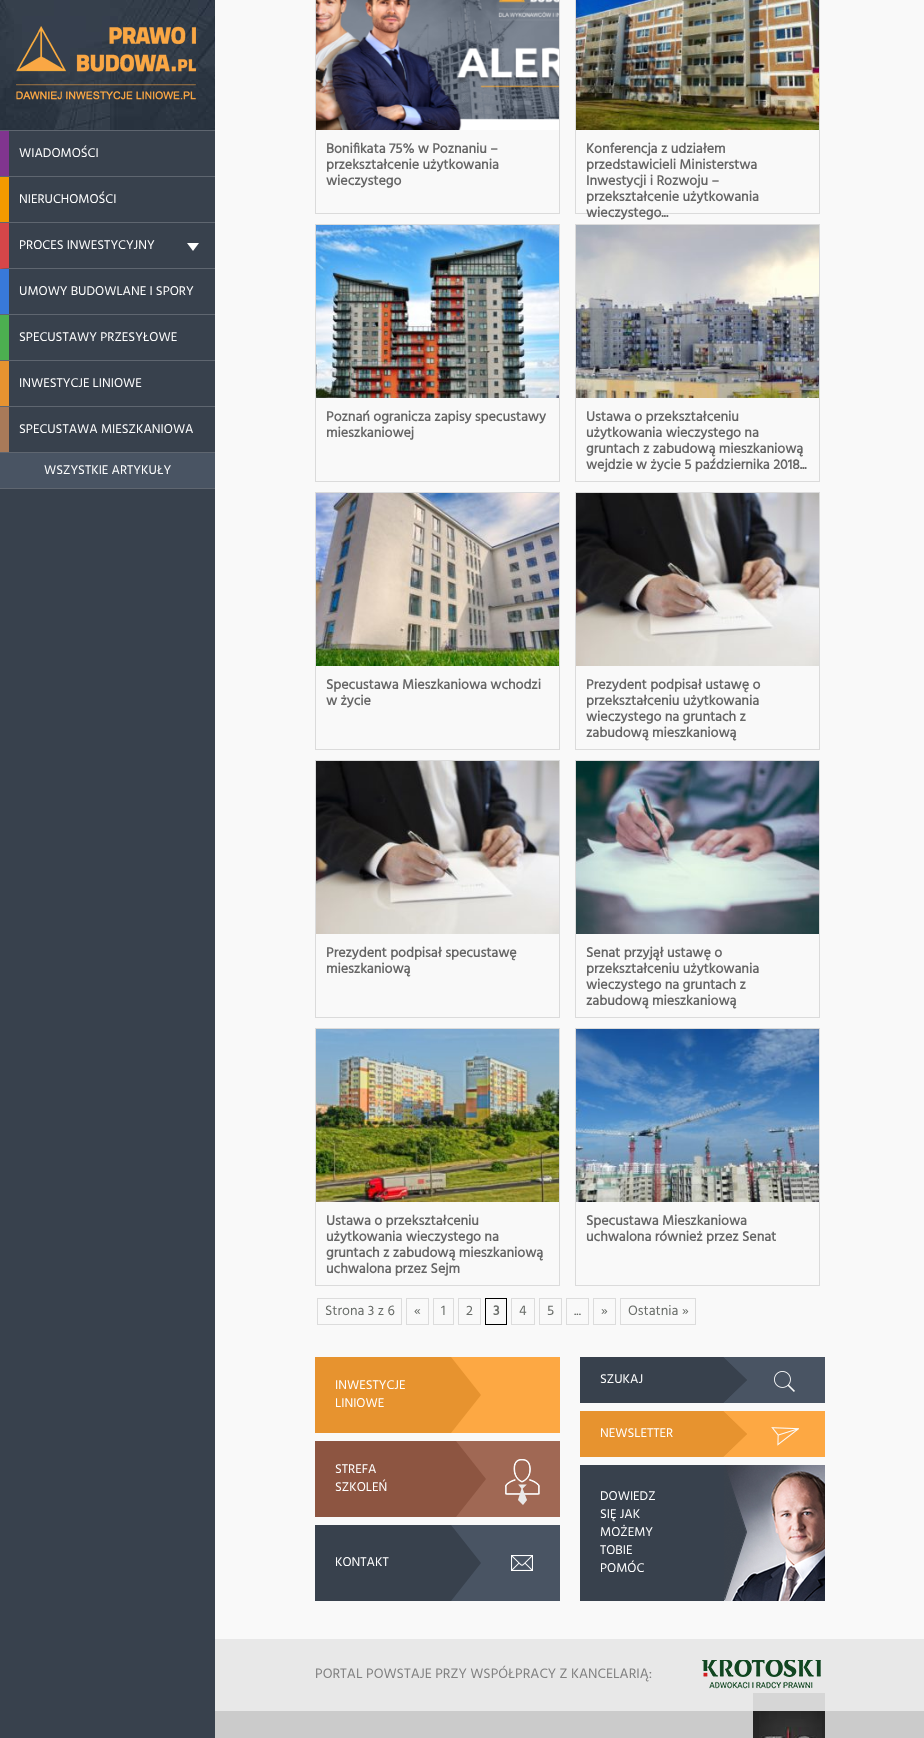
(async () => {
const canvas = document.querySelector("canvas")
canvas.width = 924
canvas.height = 1738
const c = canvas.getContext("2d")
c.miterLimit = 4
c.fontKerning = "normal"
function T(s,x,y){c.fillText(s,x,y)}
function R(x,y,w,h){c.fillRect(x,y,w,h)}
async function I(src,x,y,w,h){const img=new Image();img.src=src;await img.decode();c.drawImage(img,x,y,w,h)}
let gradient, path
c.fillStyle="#f9f9f9"
R(0,0,924,1738)
c.fillStyle="#38414d"
R(0,131,215,1607)
await I("1.png",0,0,215,130)
await I("2.png",16,26,180,74)
c.fillStyle="#5f6670"
R(0,130,215,1)
R(0,176,215,1)
c.fillStyle="#81358f"
R(0,131,9,45)
c.font="13px Hind"
c.fillStyle="#fff"
T("WIADOMOŚCI",19,157)
c.fillStyle="#5f6670"
R(0,222,215,1)
c.fillStyle="#f39a00"
R(0,177,9,45)
c.fillStyle="#fff"
T("NIERUCHOMOŚCI",19,203)
c.fillStyle="#5f6670"
path = new Path2D("M215 269h-215l9-1h206z")
c.fill(path)
c.fillStyle="#d64649"
path = new Path2D("M0 269v-46h9v45z")
c.fill(path)
c.fillStyle="#fff"
T("PROCES INWESTYCYJNY",19,249)
path = new Path2D("M187 243h12l-6 8z")
c.fill(path)
c.fillStyle="#5f6670"
R(0,314,215,1)
c.fillStyle="#3879d9"
R(0,269,9,45)
c.fillStyle="#fff"
T("UMOWY BUDOWLANE I SPORY",19,295)
c.fillStyle="#5f6670"
R(0,360,215,1)
c.fillStyle="#4caf50"
R(0,315,9,45)
c.fillStyle="#fff"
T("SPECUSTAWY PRZESYŁOWE",19,341)
c.fillStyle="#5f6670"
R(0,406,215,1)
c.fillStyle="#e69330"
R(0,361,9,45)
c.fillStyle="#fff"
T("INWESTYCJE LINIOWE",19,387)
c.fillStyle="#5f6670"
R(0,452,215,1)
c.fillStyle="#a87a59"
R(0,407,9,45)
c.fillStyle="#fff"
T("SPECUSTAWA MIESZKANIOWA",19,433)
c.fillStyle="#5f6670"
R(0,488,215,1)
c.fillStyle="#495463"
R(0,453,215,35)
c.fillStyle="#fff"
T("WSZYSTKIE ARTYKUŁY",44,474)
c.strokeStyle="#dbdbdb"
c.strokeRect(315.5,-.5,244,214)
await I("3.png",316,0,243,130)
c.font="bold 14px Hind"
c.fillStyle="#666"
T("Bonifikata 75% w Poznaniu –",326,153)
T("przekształcenie użytkowania",326,169)
T("wieczystego",326,185)
c.strokeRect(575.5,-.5,244,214)
await I("4.png",576,0,243,130)
T("Konferencja z udziałem",586,153)
T("przedstawicieli Ministerstwa",586,169)
T("Inwestycji i Rozwoju –",586,185)
T("przekształcenie użytkowania",586,201)
T("wieczystego...",586,217)
c.strokeRect(315.5,224.5,244,257)
await I("5.png",316,225,243,173)
T("Poznań ogranicza zapisy specustawy",326,421)
T("mieszkaniowej",326,437)
c.strokeRect(575.5,224.5,244,257)
await I("6.png",576,225,243,173)
T("Ustawa o przekształceniu",586,421)
T("użytkowania wieczystego na",586,437)
T("gruntach z zabudową mieszkaniową",586,453)
T("wejdzie w życie 5 października 2018...",586,469)
c.strokeRect(315.5,492.5,244,257)
await I("7.png",316,493,243,173)
T("Specustawa Mieszkaniowa wchodzi",326,689)
T("w życie",326,705)
c.strokeRect(575.5,492.5,244,257)
await I("8.png",576,493,243,173)
T("Prezydent podpisał ustawę o",586,689)
T("przekształceniu użytkowania",586,705)
T("wieczystego na gruntach z",586,721)
T("zabudową mieszkaniową",586,737)
c.strokeRect(315.5,760.5,244,257)
await I("8.png",316,761,243,173)
T("Prezydent podpisał specustawę",326,957)
T("mieszkaniową",326,973)
c.strokeRect(575.5,760.5,244,257)
await I("9.png",576,761,243,173)
T("Senat przyjął ustawę o",586,957)
T("przekształceniu użytkowania",586,973)
T("wieczystego na gruntach z",586,989)
T("zabudową mieszkaniową",586,1005)
c.strokeRect(315.5,1028.5,244,257)
await I("10.png",316,1029,243,173)
T("Ustawa o przekształceniu",326,1225)
T("użytkowania wieczystego na",326,1241)
T("gruntach z zabudową mieszkaniową",326,1257)
T("uchwalona przez Sejm",326,1273)
c.strokeRect(575.5,1028.5,244,257)
await I("11.png",576,1029,243,173)
T("Specustawa Mieszkaniowa",586,1225)
T("uchwalona również przez Senat",586,1241)
c.strokeStyle="#dcdcdc"
c.strokeRect(317.5,1298.5,84,26)
c.font="14px Hind"
c.fillStyle="#686c68"
T("Strona 3 z 6",325,1315)
c.strokeRect(406.5,1298.5,22,26)
T("«",414,1315)
c.strokeRect(433.5,1298.5,20,26)
T("1",441,1315)
c.strokeRect(458.5,1298.5,22,26)
T("2",466,1315)
c.strokeStyle="#000"
c.strokeRect(485.5,1298.5,21,26)
c.font="bold 14px Hind"
T("3",493,1315)
c.strokeStyle="#dcdcdc"
c.strokeRect(511.5,1298.5,23,26)
c.font="14px Hind"
T("4",519,1315)
c.strokeRect(539.5,1298.5,22,26)
T("5",547,1315)
c.strokeRect(593.5,1298.5,22,26)
T("»",601,1315)
c.strokeRect(620.5,1298.5,75,26)
T("Ostatnia »",628,1315)
c.strokeRect(566.5,1298.5,22,26)
T("...",574,1315)
c.fillStyle="#fda843"
R(451,1357,109,76)
c.fillStyle="#e7932f"
R(315,1357,136,76)
c.font="13px Hind"
c.fillStyle="#fff"
T("INWESTYCJE",335,1389)
T("LINIOWE",335,1407)
c.fillStyle="#e7932f"
path = new Path2D("M451 1433v-76l30 38z")
c.fill(path)
c.fillStyle="#a06854"
R(456,1441,104,76)
c.fillStyle="#8d5541"
R(315,1441,141,76)
c.fillStyle="#fff"
T("STREFA",335,1473)
T("SZKOLEŃ",335,1491)
c.fillStyle="#8d5541"
path = new Path2D("M456 1517v-76l30 38z")
c.fill(path)
await I("12.png",505,1459,35,46)
c.fillStyle="#495463"
R(451,1525,109,76)
c.fillStyle="#38414d"
R(315,1525,136,76)
c.fillStyle="#fff"
T("KONTAKT",335,1566)
c.fillStyle="#38414d"
path = new Path2D("M451 1601v-76l30 38z")
c.fill(path)
await I("13.png",511,1555,22,16)
R(580,1357,167,46)
c.fillStyle="#fff"
T("SZUKAJ",600,1383)
c.fillStyle="#495463"
path = new Path2D("M723 1357h24v23zm24 46h-24l24-23z")
c.fill(path)
c.fillStyle="#38414d"
path = new Path2D("M723 1403v-46l24 23z")
c.fill(path)
c.fillStyle="#495463"
R(747,1357,78,46)
await I("14.png",774,1371,21,21)
c.fillStyle="#e7932f"
R(580,1411,167,46)
c.fillStyle="#fff"
T("NEWSLETTER",600,1437)
c.fillStyle="#fda843"
path = new Path2D("M723 1411h24v23zm24 46h-24l24-23z")
c.fill(path)
c.fillStyle="#e7932f"
path = new Path2D("M723 1457v-46l24 23z")
c.fill(path)
c.fillStyle="#fda843"
R(747,1411,78,46)
await I("15.png",771,1427,28,19)
c.fillStyle="#38414d"
R(580,1465,144,136)
c.fillStyle="#fff"
T("DOWIEDZ",600,1500)
T("SIĘ JAK",600,1518)
T("MOŻEMY",600,1536)
T("TOBIE",600,1554)
T("POMÓC",600,1572)
await I("16.png",724,1465,101,136)
c.fillStyle="#e8e8e8"
R(215,1639,709,72)
c.font="14px Hind"
c.fillStyle="#818181"
T("PORTAL POWSTAJE PRZY WSPÓŁPRACY Z KANCELARIĄ:",315,1678)
await I("17.png",702,1660,119,29)
c.fillStyle="#d6d6d6"
R(753,1693,72,18)
c.fillStyle="#cbcbcb"
R(215,1711,709,27)
gradient = c.createLinearGradient(789,1711,789,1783)
gradient.addColorStop(0,"#232323")
gradient.addColorStop(.5,"#292929")
gradient.addColorStop(1,"#232323")
c.fillStyle = gradient
R(753,1711,72,27)
await I("18.png",759,1711,63,27)
})()
